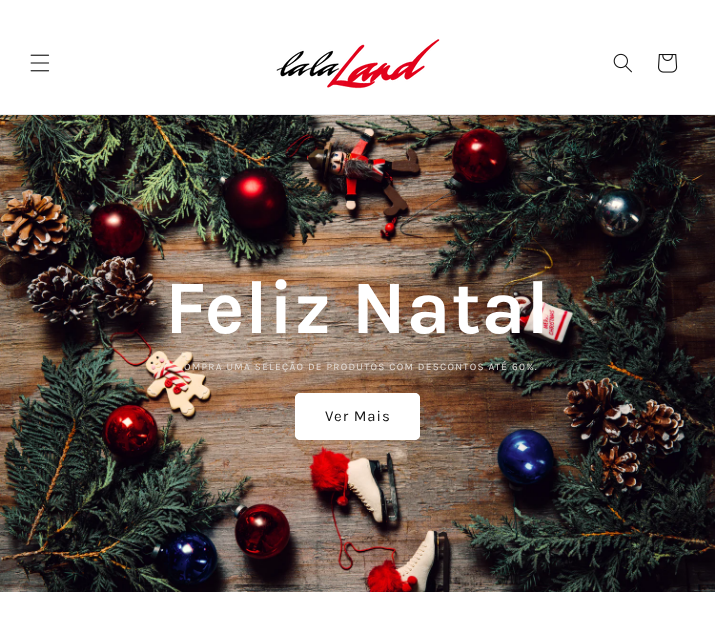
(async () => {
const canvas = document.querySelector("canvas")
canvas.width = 715
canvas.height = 640
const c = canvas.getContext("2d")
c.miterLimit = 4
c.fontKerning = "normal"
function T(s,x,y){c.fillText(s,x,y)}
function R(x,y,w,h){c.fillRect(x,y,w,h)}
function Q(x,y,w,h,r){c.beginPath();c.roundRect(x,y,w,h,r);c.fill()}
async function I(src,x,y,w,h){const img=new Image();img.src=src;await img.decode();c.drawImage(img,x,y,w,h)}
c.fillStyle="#fff"
R(0,0,715,640)
c.fillStyle="#ececec"
R(0,114,715,1)
await I("1.png",30,54,20,18)
await I("2.png",276,39,164,50)
await I("3.png",613,53,19,20)
await I("4.png",658,54,20,19)
await I("5.png",0,115,715,477)
c.letterSpacing="0.6px"
c.font="bold 75.5px Karla"
c.fillStyle="#fff"
T("Feliz Natal",165,333)
c.letterSpacing="1.3px"
c.font="10px Karla"
c.fillStyle="#e2dcd7"
T("OMPRA UMA SELEÇÃO DE PRODUTOS COM DESCONTOS ATÉ 60%.",184,370)
c.fillStyle="#fff"
Q(295,393,125,47,5)
c.beginPath()
c.roundRect(295.5,393.5,124,46,4.5)
c.strokeStyle="#fff"
c.stroke()
c.letterSpacing="1px"
c.font="15px Karla"
c.fillStyle="#121212"
T("Ver Mais",325,421)
})()
